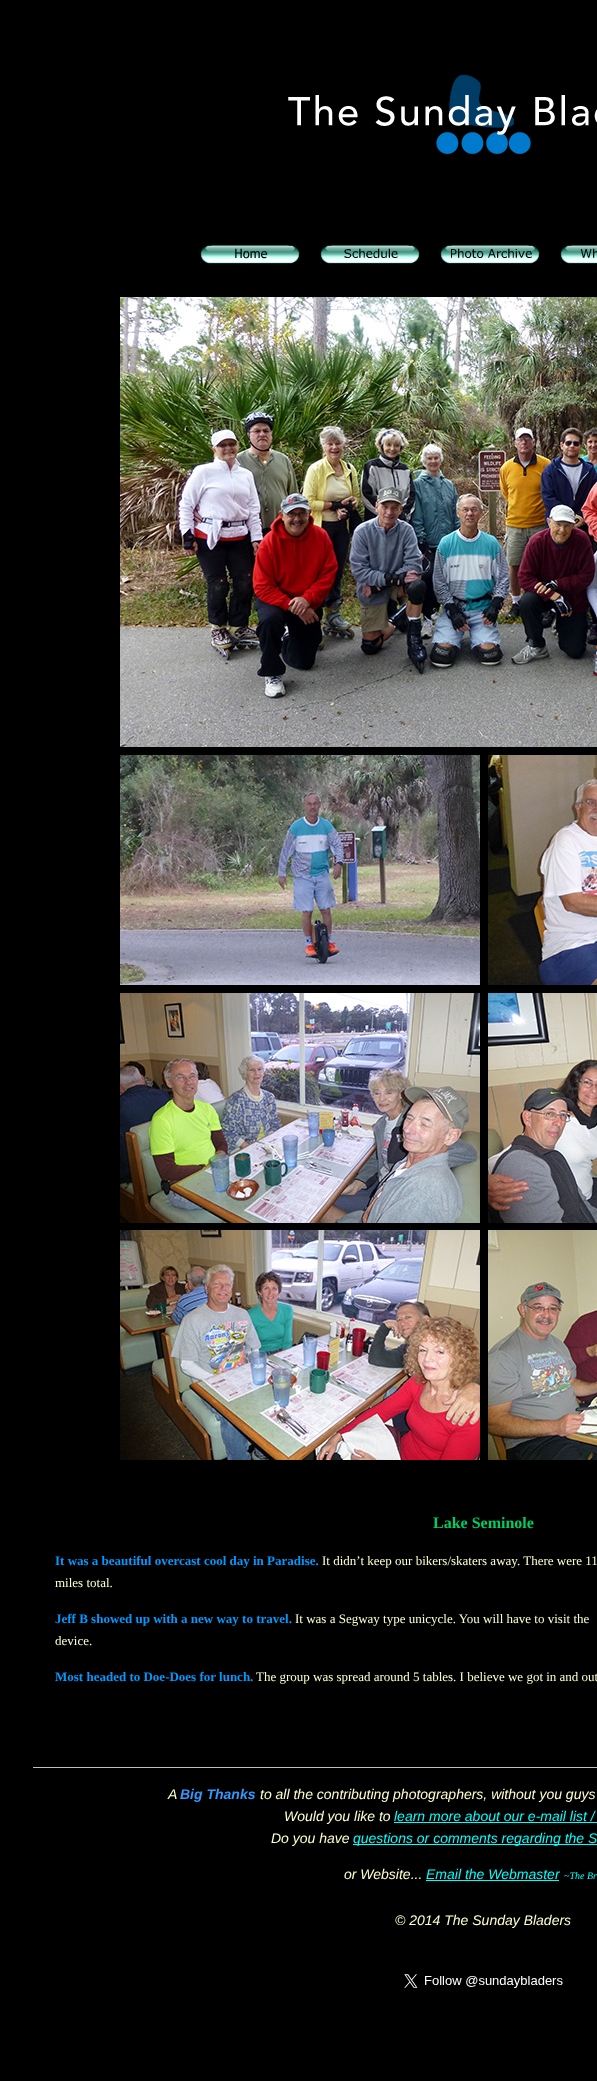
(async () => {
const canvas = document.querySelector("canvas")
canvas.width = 597
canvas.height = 2081
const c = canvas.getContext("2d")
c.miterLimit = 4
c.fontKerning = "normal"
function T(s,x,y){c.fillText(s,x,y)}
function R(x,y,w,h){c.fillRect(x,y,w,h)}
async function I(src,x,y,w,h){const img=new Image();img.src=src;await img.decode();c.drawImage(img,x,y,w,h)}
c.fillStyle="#000"
R(0,0,597,2081)
await I("1.png",288,75,309,79)
await I("2.png",200,245,100,19)
await I("3.png",320,245,100,19)
await I("4.png",440,245,100,19)
await I("5.png",560,245,37,19)
await I("6.png",120,297,477,1163)
c.font="bold 16px Liberation Serif"
c.fillStyle="#0c6"
T("Lake Seminole",433,1528)
c.font="bold 13px Liberation Serif"
c.fillStyle="#09f"
T("It was a beautiful overcast cool day in Paradise.",55,1565)
c.font="13px Liberation Serif"
c.fillStyle="#ffc"
T("It didn’t keep our bikers/skaters away. There were 11",322,1565)
T("miles total.",55,1587)
c.font="bold 13px Liberation Serif"
c.fillStyle="#09f"
T("Jeff B showed up with a new way to travel.",55,1623)
c.font="13px Liberation Serif"
c.fillStyle="#ffc"
T("It was a Segway type unicycle. You will have to visit the",295,1623)
T("device.",55,1645)
c.font="bold 13px Liberation Serif"
c.fillStyle="#09f"
T("Most headed to Doe-Does for lunch.",55,1681)
c.font="13px Liberation Serif"
c.fillStyle="#ffc"
T("The group was spread around 5 tables. I believe we got in and out",256,1681)
c.fillStyle="#bebebe"
R(33,1767,564,1)
c.font="italic 14px Liberation Sans"
c.fillStyle="#ffc"
T("A",168,1799)
c.font="italic bold 14px Liberation Sans"
c.fillStyle="#39f"
T("Big Thanks",180,1799)
c.font="italic 14px Liberation Sans"
c.fillStyle="#ffc"
T("to all the contributing photographers, without you guys",260,1799)
T("Would you like to",284,1821)
c.fillStyle="#0ff"
T("learn more about our e-mail list /",394,1821)
R(394,1822,203,1)
c.fillStyle="#ffc"
T("Do you have",271,1843)
c.fillStyle="#0ff"
R(353,1844,244,1)
T("questions or comments regarding the S",353,1843)
c.fillStyle="#ffc"
T("or Website...",344,1879)
c.fillStyle="#0ff"
T("Email the Webmaster",426,1879)
R(426,1880,133,1)
c.font="italic 10px Liberation Serif"
T("~The Br",564,1879)
c.font="italic 14px Liberation Sans"
c.fillStyle="#ffc"
T("© 2014 The Sunday Bladers",395,1925)
await I("7.png",404,1974,159,14)
})()
